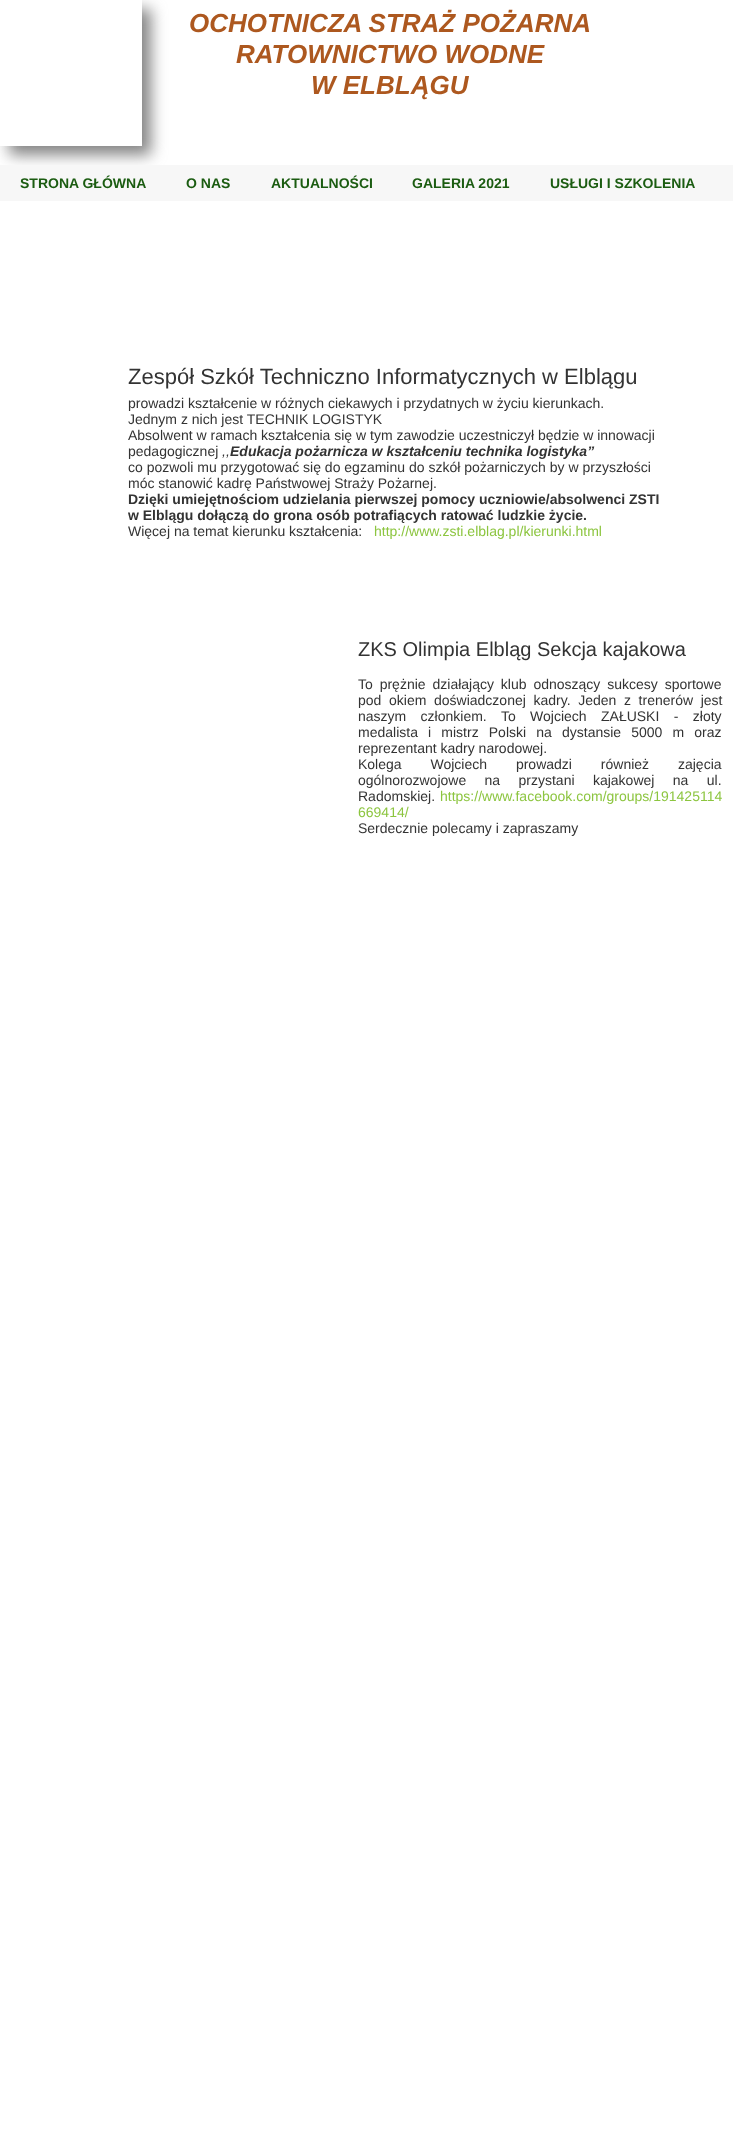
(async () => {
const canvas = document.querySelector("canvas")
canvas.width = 733
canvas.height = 2145
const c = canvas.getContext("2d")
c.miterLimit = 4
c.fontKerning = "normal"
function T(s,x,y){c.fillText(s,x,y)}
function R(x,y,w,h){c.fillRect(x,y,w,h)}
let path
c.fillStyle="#fff"
R(0,0,733,2145)
c.save()
path = new Path2D("M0 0h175v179h-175zm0 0h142v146h-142z")
c.clip(path,"evenodd")
c.fillStyle="#777777e6"
c.filter="blur(7.5px)"
c.beginPath()
c.rect(9,9,142,146)
c.fill()
c.filter="none"
c.restore()
c.font="italic bold 26px Liberation Sans"
c.fillStyle="#ad581f"
T("OCHOTNICZA STRAŻ POŻARNA",189,32)
T("RATOWNICTWO WODNE",236,63)
T("W ELBLĄGU",311,94)
c.fillStyle="#f7f7f7"
R(0,165,733,36)
c.font="bold 14px Liberation Sans"
c.fillStyle="#1b5c11"
T("STRONA GŁÓWNA",20,188)
T("O NAS",186,188)
T("AKTUALNOŚCI",271,188)
T("GALERIA 2021",412,188)
T("USŁUGI I SZKOLENIA",550,188)
c.font="22px Liberation Sans"
c.fillStyle="#333"
T("Zespół Szkół Techniczno Informatycznych w Elblągu",128,384)
c.font="14px Liberation Sans"
T("prowadzi kształcenie w różnych ciekawych i przydatnych w życiu kierunkach.",128,408)
T("Jednym z nich jest TECHNIK LOGISTYK",128,424)
T("Absolwent w ramach kształcenia się w tym zawodzie uczestniczył będzie w innowacji",128,440)
T("pedagogicznej",128,456)
c.font="italic 14px Liberation Sans"
T(",,",222,456)
c.font="italic bold 14px Liberation Sans"
T("Edukacja pożarnicza w kształceniu technika logistyka”",230,456)
c.font="14px Liberation Sans"
T("co pozwoli mu przygotować się do egzaminu do szkół pożarniczych by w przyszłości",128,472)
T("móc stanowić kadrę Państwowej Straży Pożarnej.",128,488)
c.font="bold 14px Liberation Sans"
T("Dzięki umiejętnościom udzielania pierwszej pomocy uczniowie/absolwenci ZSTI",128,504)
T("w Elblągu dołączą do grona osób potrafiących ratować ludzkie życie.",128,520)
c.font="14px Liberation Sans"
T("Więcej na temat kierunku kształcenia:",128,536)
c.fillStyle="#8cc53f"
T("http://www.zsti.elblag.pl/kierunki.html",374,536)
c.font="20px Liberation Sans"
c.fillStyle="#333"
T("ZKS Olimpia Elbląg Sekcja kajakowa",358,656)
c.wordSpacing="3px"
c.font="14px Liberation Sans"
T("To prężnie działający klub odnoszący sukcesy sportowe",358,689)
c.wordSpacing="3.75px"
T("pod okiem doświadczonej kadry. Jeden z trenerów jest",358,705)
c.wordSpacing="10.5px"
T("naszym członkiem. To Wojciech ZAŁUSKI - złoty",358,721)
c.wordSpacing="6.25px"
T("medalista i mistrz Polski na dystansie 5000 m oraz",358,737)
c.wordSpacing="0px"
T("reprezentant kadry narodowej.",358,753)
c.wordSpacing="25px"
T("Kolega Wojciech prowadzi również zajęcia",358,769)
c.wordSpacing="14.5px"
T("ogólnorozwojowe na przystani kajakowej na ul.",358,785)
c.wordSpacing="0px"
T("Radomskiej.",358,801)
c.fillStyle="#8cc53f"
T("https://www.facebook.com/groups/191425114",440,801)
T("669414/",358,817)
c.fillStyle="#333"
T("Serdecznie polecamy i zapraszamy",358,833)
})()
